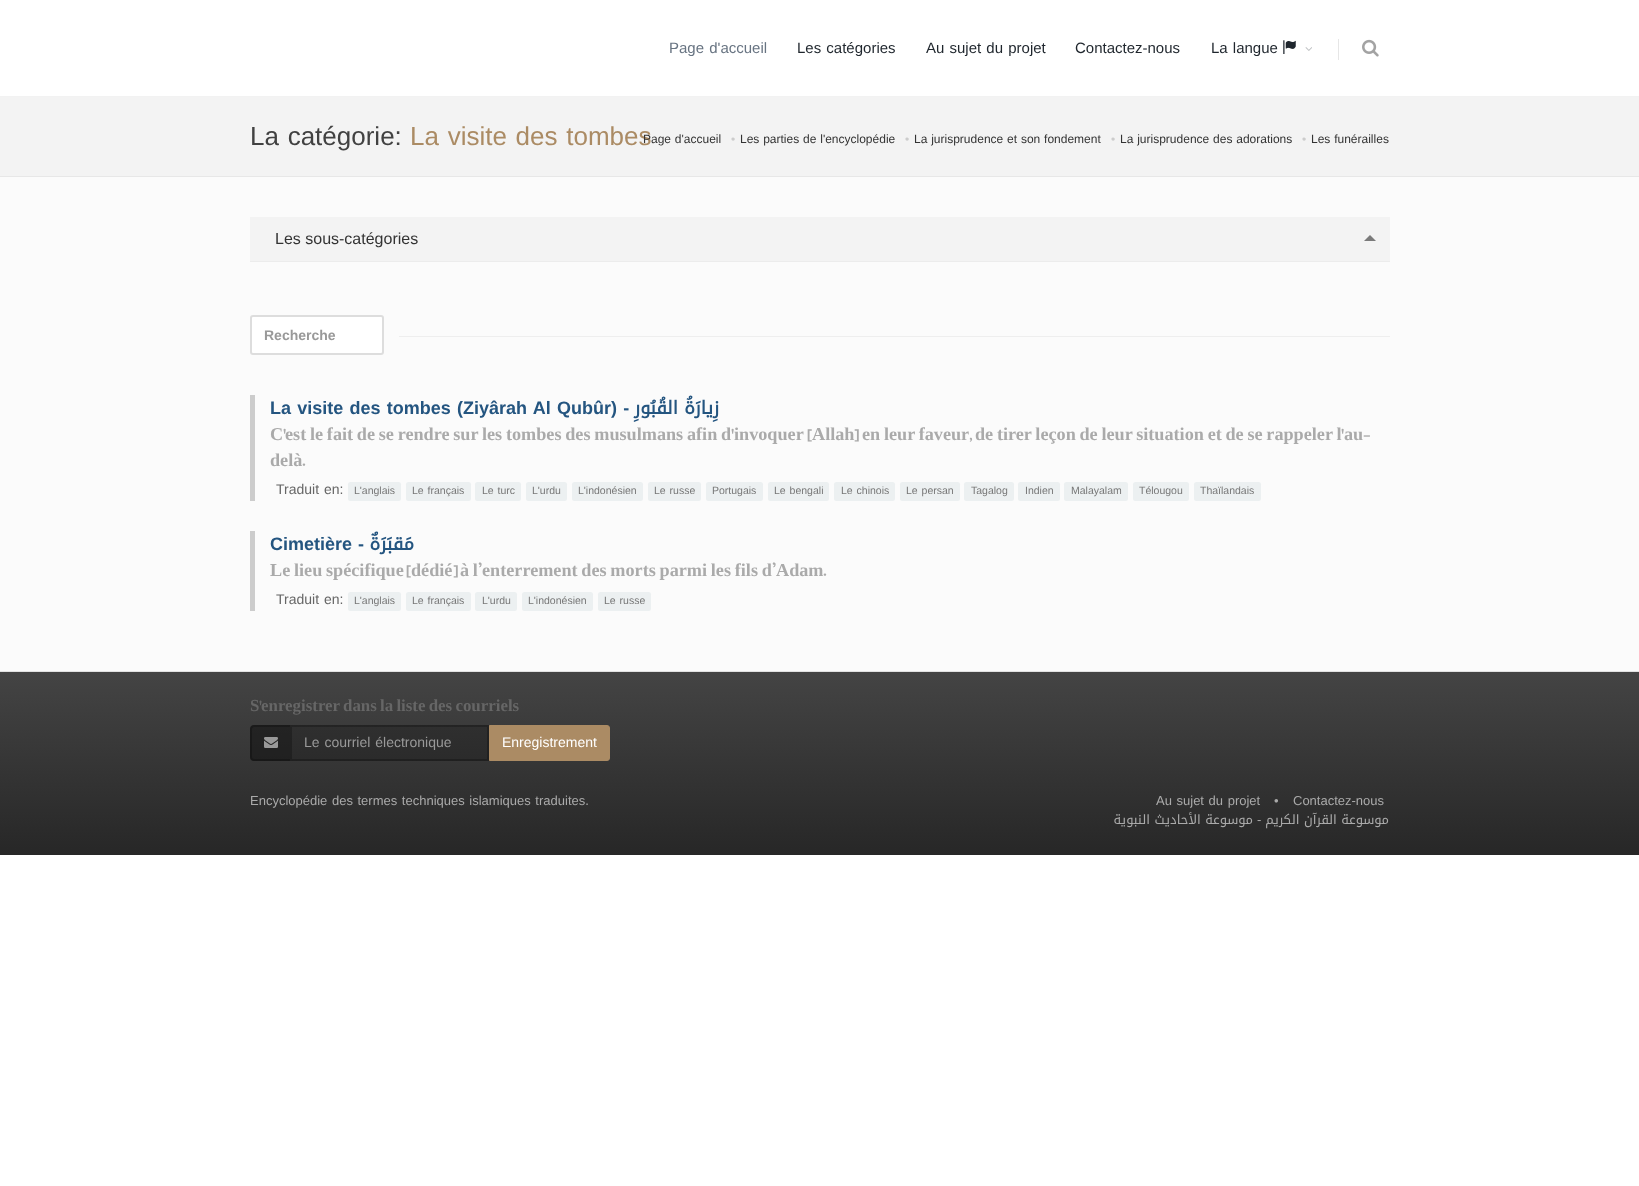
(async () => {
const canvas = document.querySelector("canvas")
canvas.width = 1639
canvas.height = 1186
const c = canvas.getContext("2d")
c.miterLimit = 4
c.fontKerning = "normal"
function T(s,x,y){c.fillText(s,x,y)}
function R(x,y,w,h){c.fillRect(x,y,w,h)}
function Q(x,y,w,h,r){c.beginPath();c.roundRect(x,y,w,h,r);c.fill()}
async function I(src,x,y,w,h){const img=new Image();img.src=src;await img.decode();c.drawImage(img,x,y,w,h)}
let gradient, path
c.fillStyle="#fff"
R(0,0,1639,1186)
c.fillStyle="#f2f2f2"
R(0,96,1639,1)
c.wordSpacing="1px"
c.font="15px Liberation Sans"
c.fillStyle="#687482"
T("Page d'accueil",669,53)
c.fillStyle="#1f262d"
T("Les catégories",797,53)
T("Au sujet du projet",926,53)
c.wordSpacing="0px"
T("Contactez-nous",1075,53)
c.wordSpacing="1px"
T("La langue",1211,53)
await I("1.png",1283,40,13,14)
await I("2.png",1305,47,7,4)
c.fillStyle="#e6e6e6"
R(1338,39,1,21)
await I("3.png",1362,39,17,18)
c.fillStyle="#f3f3f3"
R(0,97,1639,79)
c.fillStyle="#e7e7e7"
R(0,176,1639,1)
c.wordSpacing="1.5px"
c.font="26px Liberation Sans"
c.fillStyle="#414141"
T("La catégorie:",250,145)
c.fillStyle="#ab8b64"
T("La visite des tombes",410,145)
c.wordSpacing="0.5px"
c.font="12px Liberation Sans"
c.fillStyle="#333"
T("Page d'accueil",643,143)
c.wordSpacing="0px"
c.fillStyle="#ccc"
T("•",731,143)
c.wordSpacing="0.5px"
c.fillStyle="#333"
T("Les parties de l'encyclopédie",740,143)
c.wordSpacing="0px"
c.fillStyle="#ccc"
T("•",905,143)
c.wordSpacing="0.5px"
c.fillStyle="#333"
T("La jurisprudence et son fondement",914,143)
c.wordSpacing="0px"
c.fillStyle="#ccc"
T("•",1111,143)
c.wordSpacing="0.5px"
c.fillStyle="#333"
T("La jurisprudence des adorations",1120,143)
c.wordSpacing="0px"
c.fillStyle="#ccc"
T("•",1302,143)
c.wordSpacing="0.5px"
c.fillStyle="#333"
T("Les funérailles",1311,143)
c.fillStyle="#fbfbfb"
R(0,177,1639,494)
c.fillStyle="#e2e2e2"
R(0,671,1639,1)
c.fillStyle="#f3f3f3"
R(250,217,1140,44)
c.fillStyle="#ececec"
R(250,261,1140,1)
c.wordSpacing="0px"
c.font="16px Liberation Sans"
c.fillStyle="#333"
T("Les sous-catégories",275,244)
c.fillStyle="#7a7a7a"
path = new Path2D("M1376 241h-12l6-6z")
c.fill(path)
c.fillStyle="#fff"
c.beginPath()
c.roundRect(251,316,132,38,2)
c.fill()
c.strokeStyle="#ddd"
c.lineWidth=2
c.stroke()
c.font="bold 14px Liberation Sans"
c.fillStyle="#999"
T("Recherche",264,340)
c.fillStyle="#eee"
R(399,336,991,1)
c.fillStyle="#ccc"
R(250,395,5,106)
c.wordSpacing="1.25px"
c.font="bold 18px Liberation Sans"
c.fillStyle="#245580"
T("La visite des tombes (Ziyârah Al Qubûr) -",270,414)
c.wordSpacing="0px"
c.direction="rtl"
c.font="bold 18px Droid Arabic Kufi"
T("زِيارَةُ القُبُورِ",719,414)
c.direction="ltr"
c.font="bold 18.2px Liberation Serif"
c.fillStyle="#aaa"
T("C",270,440)
c.font="bold 18.2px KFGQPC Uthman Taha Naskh"
T("'",283,440)
c.wordSpacing="-0.8px"
c.font="bold 18.2px Liberation Serif"
T("est le fait de se rendre sur les tombes des musulmans afin d",285,440)
c.wordSpacing="0px"
c.font="bold 18.2px KFGQPC Uthman Taha Naskh"
T("'",731,440)
c.font="bold 18.2px Liberation Serif"
T("invoquer",734,440)
c.font="bold 18.2px KFGQPC Uthman Taha Naskh"
T("[",807,440)
c.font="bold 18.2px Liberation Serif"
T("Allah",812,440)
c.font="bold 18.2px KFGQPC Uthman Taha Naskh"
T("]",854,440)
c.wordSpacing="-0.8px"
c.font="bold 18.2px Liberation Serif"
T("en leur faveur",862,440)
T("de tirer leçon de leur situation et de se rappeler l",975,440)
c.wordSpacing="0px"
c.font="bold 18.2px KFGQPC Uthman Taha Naskh"
T("'",1341,440)
c.font="bold 18.2px Liberation Serif"
T("au",1344,440)
c.font="bold 18.2px KFGQPC Uthman Taha Naskh"
T("-",1363,440)
T(",",969,440)
c.font="bold 18.2px Liberation Serif"
T("delà",270,466)
c.font="bold 18.2px KFGQPC Uthman Taha Naskh"
T(".",302,466)
c.wordSpacing="1px"
c.font="14px Liberation Sans"
c.fillStyle="#666"
T("Traduit en:",276,494)
c.fillStyle="#ecf0f1"
Q(348,482,53,19,2.5)
c.wordSpacing="0px"
c.font="10.5px Liberation Sans"
c.fillStyle="#777"
T("L'anglais",354,494)
c.fillStyle="#ecf0f1"
Q(406,482,65,19,2.5)
c.wordSpacing="1px"
c.fillStyle="#777"
T("Le français",412,494)
c.fillStyle="#ecf0f1"
Q(475,482,46,19,2.5)
c.fillStyle="#777"
T("Le turc",482,494)
c.fillStyle="#ecf0f1"
Q(526,482,41,19,2.5)
c.wordSpacing="0px"
c.fillStyle="#777"
T("L'urdu",532,494)
c.fillStyle="#ecf0f1"
Q(572,482,71,19,2.5)
c.fillStyle="#777"
T("L'indonésien",578,494)
c.fillStyle="#ecf0f1"
Q(648,482,53,19,2.5)
c.wordSpacing="1px"
c.fillStyle="#777"
T("Le russe",654,494)
c.fillStyle="#ecf0f1"
Q(706,482,57,19,2.5)
c.wordSpacing="0px"
c.fillStyle="#777"
T("Portugais",712,494)
c.fillStyle="#ecf0f1"
Q(768,482,61,19,2.5)
c.wordSpacing="1px"
c.fillStyle="#777"
T("Le bengali",774,494)
c.fillStyle="#ecf0f1"
Q(834,482,61,19,2.5)
c.fillStyle="#777"
T("Le chinois",841,494)
c.fillStyle="#ecf0f1"
Q(900,482,60,19,2.5)
c.fillStyle="#777"
T("Le persan",906,494)
c.fillStyle="#ecf0f1"
Q(964,482,50,19,2.5)
c.wordSpacing="0px"
c.fillStyle="#777"
T("Tagalog",971,494)
c.fillStyle="#ecf0f1"
Q(1018,482,42,19,2.5)
c.fillStyle="#777"
T("Indien",1025,494)
c.fillStyle="#ecf0f1"
Q(1064,482,64,19,2.5)
c.fillStyle="#777"
T("Malayalam",1071,494)
c.fillStyle="#ecf0f1"
Q(1133,482,56,19,2.5)
c.fillStyle="#777"
T("Télougou",1139,494)
c.fillStyle="#ecf0f1"
Q(1194,482,67,19,2.5)
c.fillStyle="#777"
T("Thaïlandais",1200,494)
c.fillStyle="#ccc"
R(250,531,5,80)
c.wordSpacing="1px"
c.font="bold 18px Liberation Sans"
c.fillStyle="#245580"
T("Cimetière -",270,550)
c.wordSpacing="0px"
c.direction="rtl"
c.font="bold 18px Droid Arabic Kufi"
T("مَقبَرَةٌ",414,550)
c.wordSpacing="-0.8px"
c.direction="ltr"
c.font="bold 18.2px Liberation Serif"
c.fillStyle="#aaa"
T("Le lieu spécifique",270,576)
c.wordSpacing="0px"
c.font="bold 18.2px KFGQPC Uthman Taha Naskh"
T("[",406,576)
c.font="bold 18.2px Liberation Serif"
T("dédié",411,576)
c.font="bold 18.2px KFGQPC Uthman Taha Naskh"
T("]",453,576)
c.wordSpacing="-0.8px"
c.font="bold 18.2px Liberation Serif"
T("à l",460,576)
c.wordSpacing="0px"
c.font="bold 18.2px KFGQPC Uthman Taha Naskh"
T("’",478,576)
c.wordSpacing="-0.8px"
c.font="bold 18.2px Liberation Serif"
T("enterrement des morts parmi les fils d",482,576)
c.wordSpacing="0px"
c.font="bold 18.2px KFGQPC Uthman Taha Naskh"
T("’",772,576)
c.font="bold 18.2px Liberation Serif"
T("Adam",776,576)
c.font="bold 18.2px KFGQPC Uthman Taha Naskh"
T(".",823,576)
c.wordSpacing="1px"
c.font="14px Liberation Sans"
c.fillStyle="#666"
T("Traduit en:",276,604)
c.fillStyle="#ecf0f1"
Q(348,592,53,19,2.5)
c.wordSpacing="0px"
c.font="10.5px Liberation Sans"
c.fillStyle="#777"
T("L'anglais",354,604)
c.fillStyle="#ecf0f1"
Q(406,592,65,19,2.5)
c.wordSpacing="1px"
c.fillStyle="#777"
T("Le français",412,604)
c.fillStyle="#ecf0f1"
Q(475,592,42,19,2.5)
c.wordSpacing="0px"
c.fillStyle="#777"
T("L'urdu",482,604)
c.fillStyle="#ecf0f1"
Q(522,592,71,19,2.5)
c.fillStyle="#777"
T("L'indonésien",528,604)
c.fillStyle="#ecf0f1"
Q(598,592,53,19,2.5)
c.wordSpacing="1px"
c.fillStyle="#777"
T("Le russe",604,604)
gradient = c.createLinearGradient(820,672,820,855)
gradient.addColorStop(0,"#444")
gradient.addColorStop(1,"#272727")
c.fillStyle = gradient
R(0,672,1639,183)
gradient = c.createLinearGradient(820,672,820,855)
gradient.addColorStop(0,"#363636")
gradient.addColorStop(1,"#1f1f1f")
c.fillStyle = gradient
R(290,725,199,36)
c.wordSpacing="0px"
c.font="bold 16.9px Liberation Serif"
c.fillStyle="#666"
T("S",250,711)
c.font="bold 16.9px KFGQPC Uthman Taha Naskh"
T("'",259,711)
c.wordSpacing="-1px"
c.font="bold 16.9px Liberation Serif"
T("enregistrer dans la liste des courriels",261,711)
c.fillStyle="#00000066"
c.beginPath()
c.roundRect(250,725,40,36,[4,0,0,4])
c.fill()
c.fillStyle="#00000040"
path = new Path2D("M254 725h36v36h-36c-2 0-4-2-4-4v-28c0-2 2-4 4-4zm0 2h36v32h-36c-1 0-2-1-2-2v-28c0-1 1-2 2-2z")
c.fill(path,"evenodd")
await I("4.png",264,737,14,11)
c.strokeStyle="#00000040"
c.strokeRect(291,726,197,34)
c.wordSpacing="1px"
c.font="14px Liberation Sans"
c.fillStyle="#999"
T("Le courriel électronique",304,747)
c.fillStyle="#ab8b64"
c.beginPath()
c.roundRect(489.5,725.5,120,35,[0,2.5,2.5,0])
c.fill()
c.strokeStyle="#ab8b64"
c.lineWidth=1
c.stroke()
c.wordSpacing="0px"
c.fillStyle="#fff"
T("Enregistrement",502,747)
c.wordSpacing="1px"
c.font="13px Liberation Sans"
c.fillStyle="#aaa"
T("Encyclopédie des termes techniques islamiques traduites.",250,805)
T("Au sujet du projet",1156,805)
c.wordSpacing="0px"
T("•",1274,805)
T("Contactez-nous",1293,805)
c.direction="rtl"
c.font="13px Droid Arabic Kufi"
T("موسوعة الأحاديث النبوية",1253,824)
c.direction="ltr"
c.font="13px Liberation Sans"
T("-",1257,824)
c.direction="rtl"
c.font="13px Droid Arabic Kufi"
T("موسوعة القرآن الكريم",1389,824)
})()
